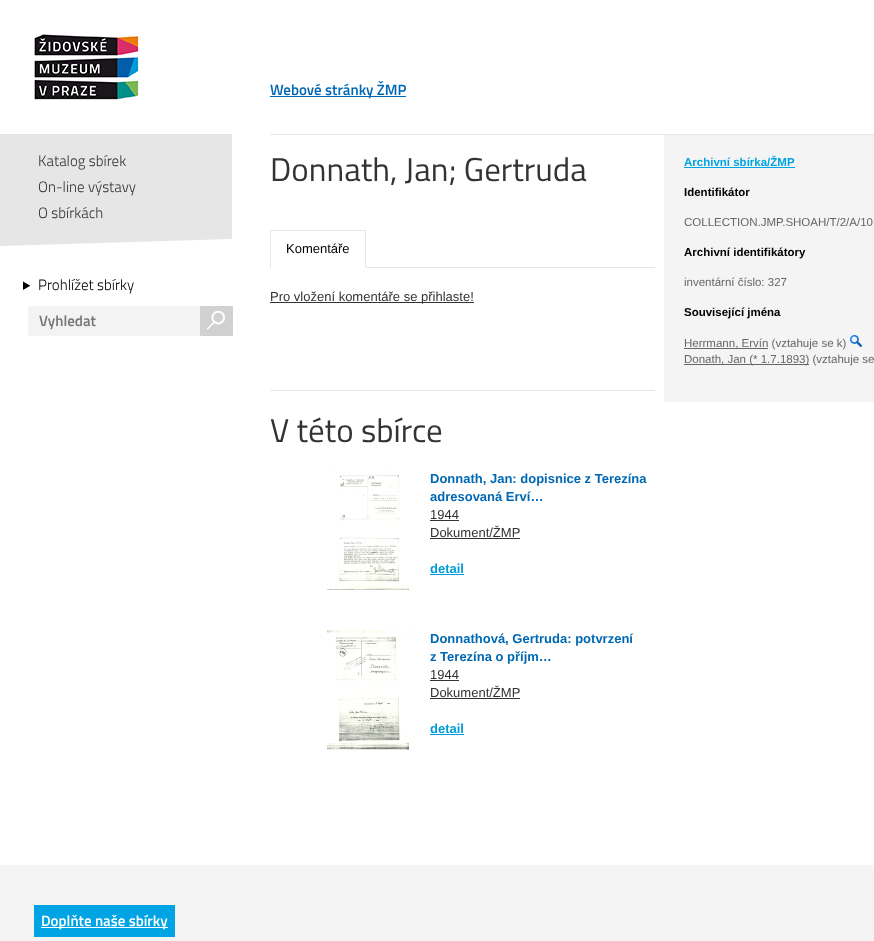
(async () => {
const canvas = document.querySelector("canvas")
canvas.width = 874
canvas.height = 941
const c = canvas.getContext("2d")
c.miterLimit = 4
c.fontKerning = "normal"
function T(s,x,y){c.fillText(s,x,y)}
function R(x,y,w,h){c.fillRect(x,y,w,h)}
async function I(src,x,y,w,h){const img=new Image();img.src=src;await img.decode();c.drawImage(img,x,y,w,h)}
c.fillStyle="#fff"
R(0,0,874,941)
await I("1.png",34,34,105,66)
c.fillStyle="#0068b3"
R(270,96,136,1)
c.font="600 15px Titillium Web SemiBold"
T("Webové stránky ŽMP",270,95)
c.fillStyle="#e6e6e6"
R(0,134,232,105)
await I("2.png",0,239,232,9)
c.font="300 15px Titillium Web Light"
c.fillStyle="#333"
T("Katalog sbírek",38,166)
T("On-line výstavy",38,192)
T("O sbírkách",38,218)
await I("3.png",23,281,7,9)
c.fillStyle="#000"
T("Prohlížet sbírky",38,290)
c.fillStyle="#f3f3f3"
R(28,306,172,30)
c.font="600 15px Titillium Web SemiBold"
c.fillStyle="#757575"
T("Vyhledat",39,326)
c.fillStyle="#d1d1d1"
R(200,306,33,30)
await I("4.png",207,310,18,20)
c.fillStyle="#e6e6e6"
R(270,134,604,1)
c.font="33px Titillium Web"
c.fillStyle="#333"
T("Donnath, Jan; Gertruda",270,181)
c.fillStyle="#e6e6e6"
R(366,267,289,1)
R(270,230,96,1)
R(365,230,1,38)
c.fillStyle="#fff"
R(365,267,1,1)
c.fillStyle="#e6e6e6"
R(270,230,1,38)
c.font="13px Liberation Sans"
c.fillStyle="#000"
T("Komentáře",286,253)
c.fillStyle="#333"
R(270,302,204,1)
T("Pro vložení komentáře se přihlaste!",270,301)
c.fillStyle="#e6e6e6"
R(270,390,385,1)
c.font="33px Titillium Web"
c.fillStyle="#333"
T("V této sbírce",270,442)
await I("5.png",327,470,83,120)
c.font="bold 13px Liberation Sans"
c.fillStyle="#0068b3"
T("Donnath, Jan: dopisnice z Terezína",430,483)
T("adresovaná Erví…",430,501)
c.font="13px Liberation Sans"
c.fillStyle="#333"
T("1944",430,519)
R(430,520,29,1)
T("Dokument/ŽMP",430,537)
R(430,538,90,1)
c.font="bold 13px Liberation Sans"
c.fillStyle="#009bd9"
T("detail",430,573)
R(430,574,34,1)
await I("6.png",327,630,83,120)
c.fillStyle="#0068b3"
T("Donnathová, Gertruda: potvrzení",430,643)
T("z Terezína o příjm…",430,661)
c.font="13px Liberation Sans"
c.fillStyle="#333"
T("1944",430,679)
R(430,680,29,1)
T("Dokument/ŽMP",430,697)
R(430,698,90,1)
c.font="bold 13px Liberation Sans"
c.fillStyle="#009bd9"
T("detail",430,733)
R(430,734,34,1)
c.fillStyle="#f4f4f4"
R(664,135,210,267)
c.font="bold 11.5px Liberation Sans"
c.fillStyle="#00a4e4"
T("Archivní sbírka/ŽMP",684,166)
R(684,167,111,1)
c.fillStyle="#000"
T("Identifikátor",684,196)
c.font="11.5px Liberation Sans"
c.fillStyle="#666"
T("COLLECTION.JMP.SHOAH/T/2/A/10",684,226)
c.font="bold 11.5px Liberation Sans"
c.fillStyle="#000"
T("Archivní identifikátory",684,256)
c.font="11.5px Liberation Sans"
c.fillStyle="#666"
T("inventární číslo: 327",684,286)
c.font="bold 11.5px Liberation Sans"
c.fillStyle="#000"
T("Související jména",684,316)
c.fillStyle="#666"
R(684,348,84,1)
c.font="11.5px Liberation Sans"
T("Herrmann, Ervín (vztahuje se k)",684,347)
await I("7.png",850,335,12,12)
R(684,364,125,1)
T("Donath, Jan (* 1.7.1893) (vztahuje se",684,363)
c.fillStyle="#f4f4f4"
R(0,865,874,76)
c.fillStyle="#00a4e4"
R(34,905,141,32)
c.fillStyle="#fff"
R(41,927,127,1)
c.font="600 15px Titillium Web SemiBold"
T("Doplňte naše sbírky",41,926)
})()
